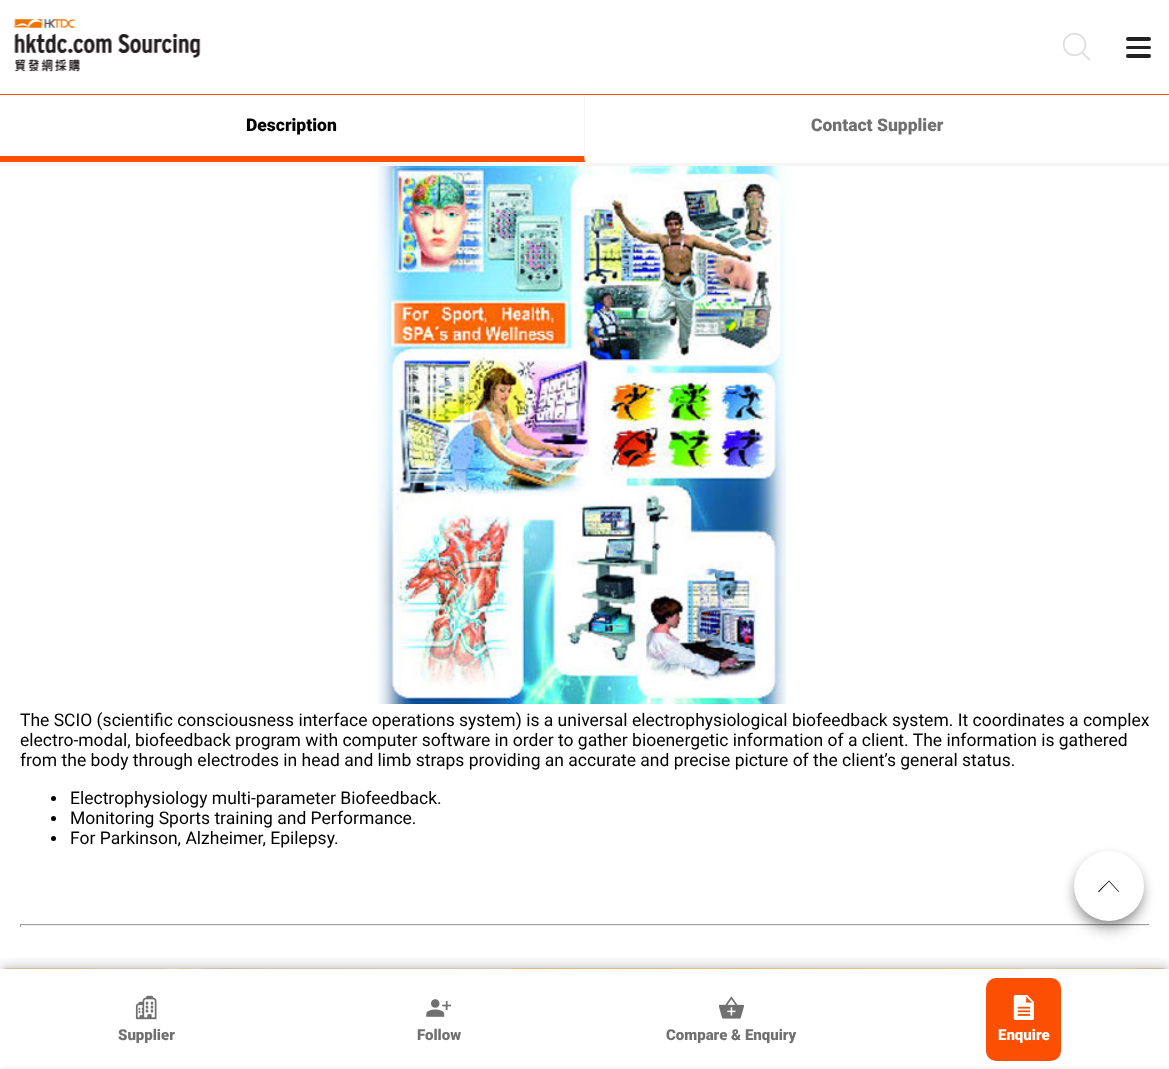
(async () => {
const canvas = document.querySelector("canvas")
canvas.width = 1169
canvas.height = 1069
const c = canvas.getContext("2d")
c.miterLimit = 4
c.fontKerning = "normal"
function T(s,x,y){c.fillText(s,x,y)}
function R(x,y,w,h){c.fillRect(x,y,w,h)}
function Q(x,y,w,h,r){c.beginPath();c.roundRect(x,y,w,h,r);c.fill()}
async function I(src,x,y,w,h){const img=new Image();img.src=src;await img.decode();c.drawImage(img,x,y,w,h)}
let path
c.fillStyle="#fff"
R(0,0,1169,1069)
c.fillStyle="#f5f5f5"
path = new Path2D("M585 94v68l-1-6v-62z")
c.fill(path)
c.fillStyle="#fb5004"
R(0,94,1169,1)
await I("1.png",12,19,189,53)
await I("2.png",1063,33,27,28)
c.fillStyle="#222"
Q(1126,37,25,4,2)
Q(1126,46,25,3,1.5)
Q(1126,54,25,4,2)
c.fillStyle="#f5f5f5"
R(0,163,1169,3)
c.fillStyle="#fb5004"
path = new Path2D("M585 162h-585v-6h584z")
c.fill(path)
c.font="900 17.5px Roboto"
c.fillStyle="#000"
T("Description",246,131)
c.fillStyle="#707070"
T("Contact Supplier",811,131)
await I("3.png",377,166,410,538)
c.font="17.5px Roboto"
c.fillStyle="#000"
T("The SCIO (scientific consciousness interface operations system) is a universal electrophysiological biofeedback system. It coordinates a complex",20,726)
T("electro-modal, biofeedback program with computer software in order to gather bioenergetic information of a client. The information is gathered",20,746)
T("from the body through electrodes in head and limb straps providing an accurate and precise picture of the client’s general status.",20,766)
c.beginPath()
c.arc(53.5,798.5,2.5,0,7)
c.fill()
T("Electrophysiology multi-parameter Biofeedback.",70,804)
c.beginPath()
c.arc(53.5,818.5,2.5,0,7)
c.fill()
T("Monitoring Sports training and Performance.",70,824)
c.beginPath()
c.arc(53.5,838.5,2.5,0,7)
c.fill()
T("For Parkinson, Alzheimer, Epilepsy.",70,844)
c.fillStyle="#9f9f9f"
R(20,924,1130,1)
c.fillStyle="#eee"
R(1149,924,1,3)
R(20,925,1130,1)
c.fillStyle="#9f9f9f"
R(20,924,1,3)
c.fillStyle="#00000033"
c.filter="blur(3px)"
c.beginPath()
c.roundRect(0,970,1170,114,6)
c.fill()
c.filter="none"
await I("4.png",4,968,1162,1)
c.fillStyle="#fff"
R(0,969,1169,100)
c.save()
c.beginPath()
c.rect(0,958,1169,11)
c.clip()
c.fillStyle="#00000024"
c.filter="blur(6px)"
c.beginPath()
c.rect(0,964,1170,101)
c.fill()
c.filter="none"
c.restore()
await I("5.png",135,995,22,25)
c.font="900 15px Roboto"
c.fillStyle="#707070"
T("Supplier",118,1040)
await I("6.png",426,999,25,18)
T("Follow",417,1040)
await I("7.png",719,996,25,23)
T("Compare & Enquiry",666,1040)
c.fillStyle="#fb5004"
Q(986,978,75,83,10)
await I("8.png",1013,995,21,25)
c.fillStyle="#fff"
T("Enquire",998,1040)
c.fillStyle="#00000033"
c.filter="blur(3px)"
c.beginPath()
c.roundRect(0,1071,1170,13,6)
c.fill()
c.filter="none"
c.fillStyle="#0000001f"
c.filter="blur(4.5px)"
c.beginPath()
c.roundRect(1071,853,75,75,37.5)
c.fill()
c.filter="none"
c.fillStyle="#00000024"
c.filter="blur(6px)"
c.beginPath()
c.roundRect(1073,860,72,73,36)
c.fill()
c.filter="none"
c.fillStyle="#00000033"
c.filter="blur(3px)"
c.beginPath()
c.roundRect(1078,861,62,63,31)
c.fill()
c.filter="none"
c.fillStyle="#fff"
c.beginPath()
c.arc(1109,886,35,0,7)
c.fill()
c.fillStyle="#000"
path = new Path2D("M1098 891.5l11-11l10 11l-.5 .5l-9.5-10.5l-10 10.5z")
c.fill(path)
})()
